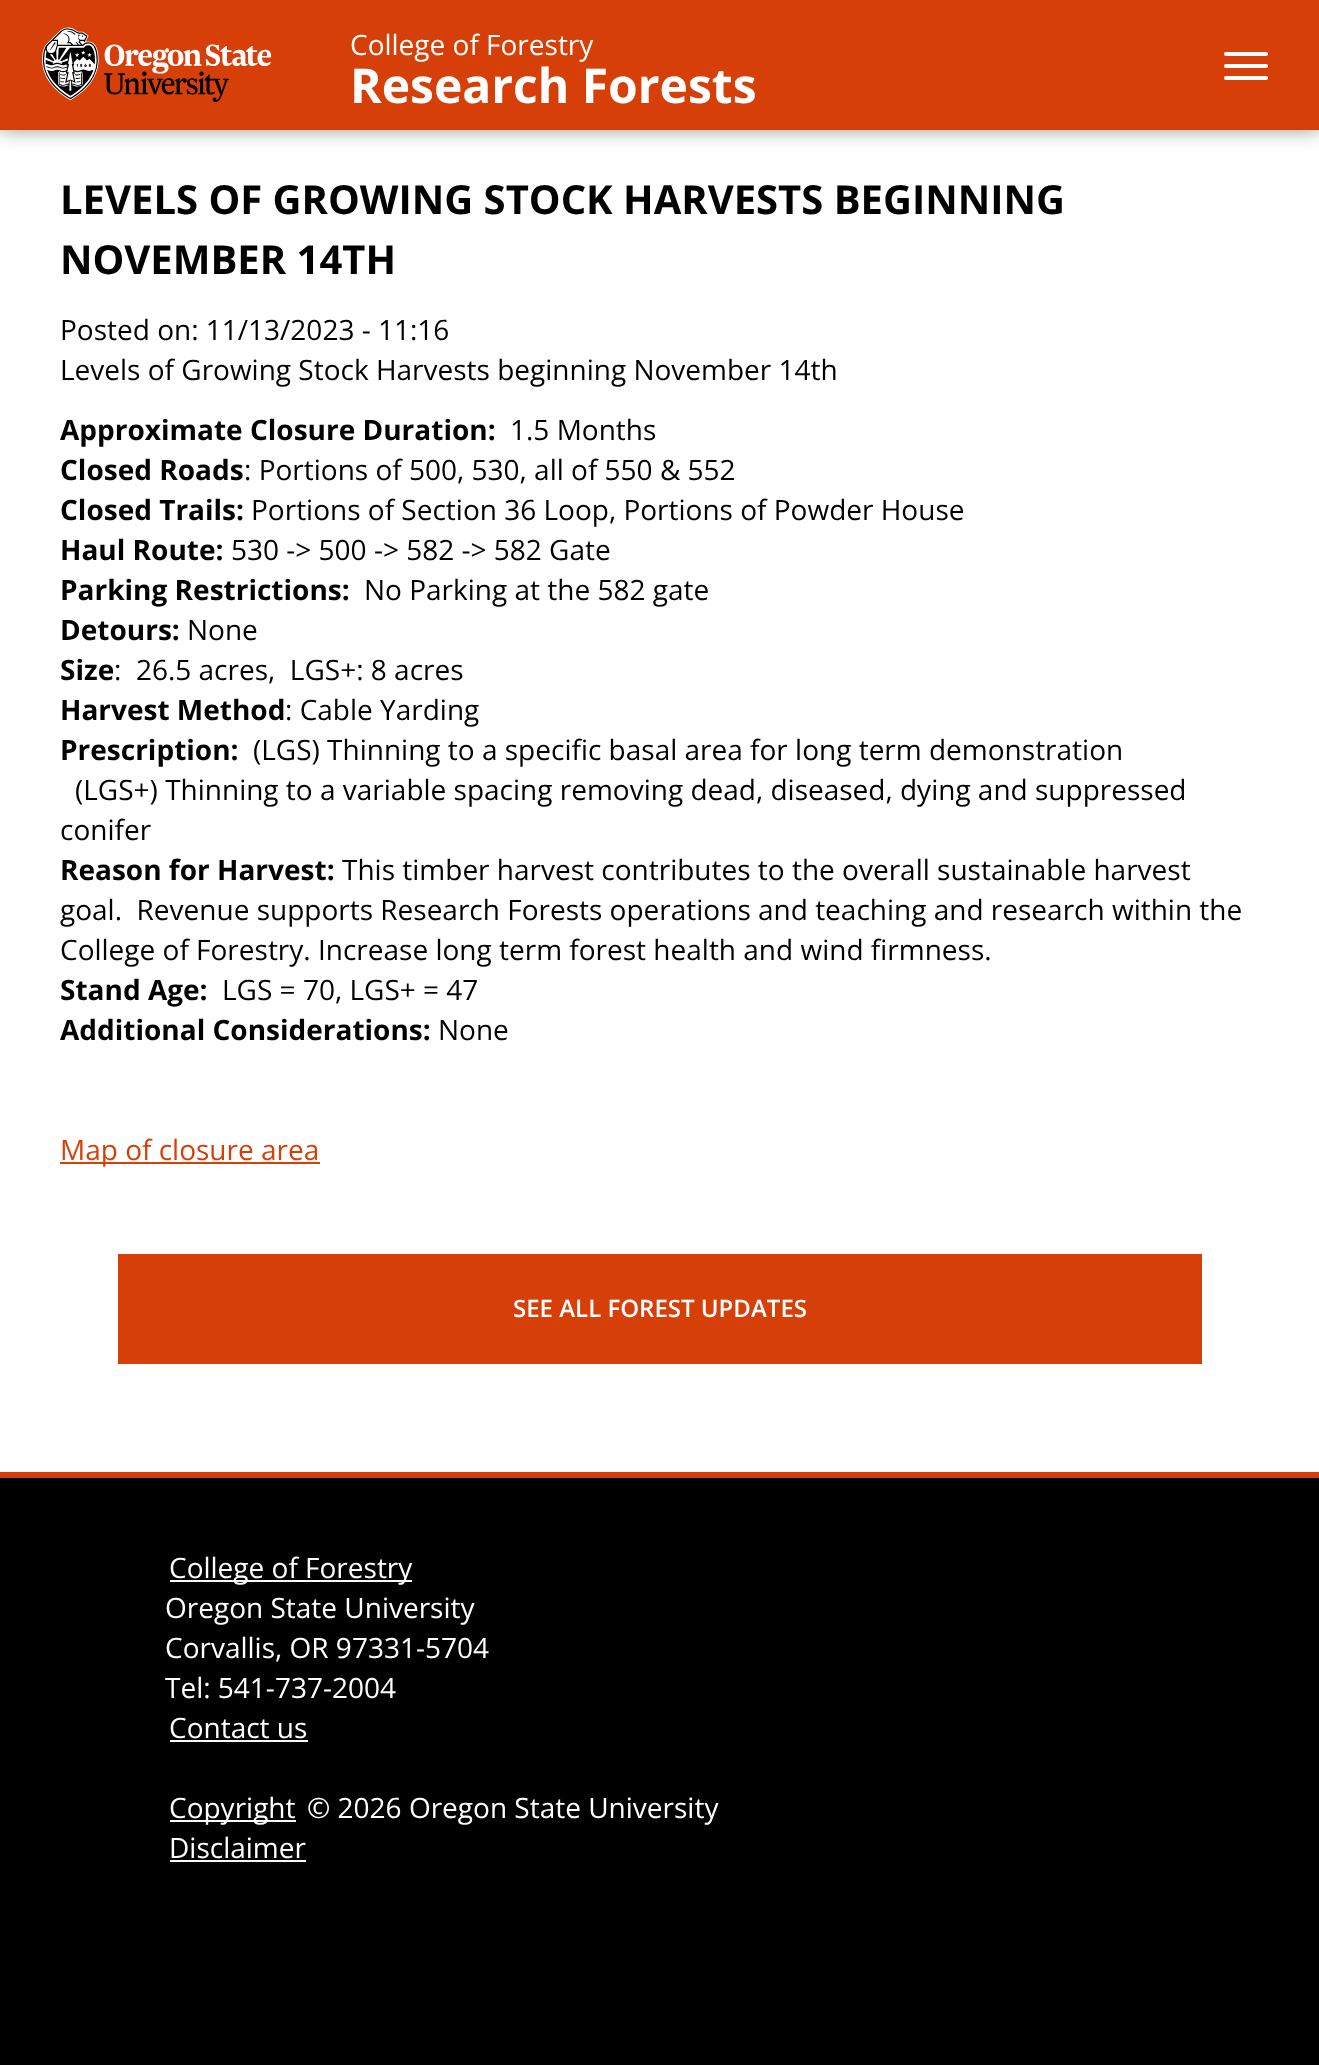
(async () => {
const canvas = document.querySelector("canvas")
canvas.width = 1319
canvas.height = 2065
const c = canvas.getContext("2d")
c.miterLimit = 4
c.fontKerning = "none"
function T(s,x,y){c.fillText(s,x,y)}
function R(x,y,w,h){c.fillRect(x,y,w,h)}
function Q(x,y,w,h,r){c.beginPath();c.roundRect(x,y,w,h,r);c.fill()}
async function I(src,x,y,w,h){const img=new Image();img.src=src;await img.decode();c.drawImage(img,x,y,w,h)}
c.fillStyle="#fff"
R(0,0,1319,2065)
c.fillStyle="#00000066"
c.filter="blur(10px)"
c.beginPath()
c.rect(0,0,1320,130)
c.fill()
c.filter="none"
c.fillStyle="#d73f09"
R(0,0,1319,130)
await I("1.png",42,27,230,75)
c.font="28px Open Sans"
c.fillStyle="#fff"
T("College of Forestry",350,55)
c.font="bold 48px Open Sans"
T("Research Forests",350,103)
Q(1224,52,44,4,2)
Q(1224,64,44,4,2)
Q(1224,76,44,4,2)
c.font="bold 40px Open Sans"
c.fillStyle="#000"
T("LEVELS OF GROWING STOCK HARVESTS BEGINNING",60,214)
T("NOVEMBER 14TH",60,274)
c.font="28px Open Sans"
T("Posted on: 11/13/2023 - 11:16",60,340)
T("Levels of Growing Stock Harvests beginning November 14th",60,380)
c.font="bold 28px Open Sans"
T("Approximate Closure Duration:",60,440)
c.font="28px Open Sans"
T("1.5 Months",510,440)
c.font="bold 28px Open Sans"
T("Closed Roads",60,480)
c.font="28px Open Sans"
T(": Portions of 500, 530, all of 550 & 552",244,480)
c.font="bold 28px Open Sans"
T("Closed Trails:",60,520)
c.font="28px Open Sans"
T("Portions of Section 36 Loop, Portions of Powder House",251,520)
c.font="bold 28px Open Sans"
T("Haul Route:",60,560)
c.font="28px Open Sans"
T("530 -> 500 -> 582 -> 582 Gate",231,560)
c.font="bold 28px Open Sans"
T("Parking Restrictions:",60,600)
c.font="28px Open Sans"
T("No Parking at the 582 gate",364,600)
c.font="bold 28px Open Sans"
T("Detours:",60,640)
c.font="28px Open Sans"
T("None",187,640)
c.font="bold 28px Open Sans"
T("Size",60,680)
c.font="28px Open Sans"
T(":  26.5 acres,  LGS+: 8 acres",114,680)
c.font="bold 28px Open Sans"
T("Harvest Method",60,720)
c.font="28px Open Sans"
T(": Cable Yarding",285,720)
c.font="bold 28px Open Sans"
T("Prescription:",60,760)
c.font="28px Open Sans"
T("(LGS) Thinning to a specific basal area for long term demonstration",253,760)
T("(LGS+) Thinning to a variable spacing removing dead, diseased, dying and suppressed",75,800)
T("conifer",60,840)
c.font="bold 28px Open Sans"
T("Reason for Harvest:",60,880)
c.font="28px Open Sans"
T("This timber harvest contributes to the overall sustainable harvest",342,880)
T("goal.  Revenue supports Research Forests operations and teaching and research within the",60,920)
T("College of Forestry. Increase long term forest health and wind firmness.",60,960)
c.font="bold 28px Open Sans"
T("Stand Age:",60,1000)
c.font="28px Open Sans"
T("LGS = 70, LGS+ = 47",222,1000)
c.font="bold 28px Open Sans"
T("Additional Considerations:",60,1040)
c.font="28px Open Sans"
T("None",438,1040)
c.fillStyle="#d73f09"
R(60,1162,260,2)
T("Map of closure area",60,1160)
R(118,1254,1084,110)
c.font="600 24px Open Sans"
c.fillStyle="#fff"
T("SEE ALL FOREST UPDATES",513,1317)
c.fillStyle="#000"
R(0,1478,1319,587)
c.fillStyle="#d73f09"
R(0,1472,1319,6)
c.fillStyle="#fff"
R(170,1580,242,2)
c.font="28px Open Sans"
T("College of Forestry",169,1578)
T("Oregon State University",165,1618)
T("Corvallis, OR 97331-5704",165,1658)
T("Tel: 541-737-2004",165,1698)
T("Contact us",169,1738)
R(170,1740,138,2)
R(170,1820,126,2)
T("Copyright",169,1818)
T("© 2026 Oregon State University",307,1818)
T("Disclaimer",169,1858)
R(170,1860,136,2)
})()
